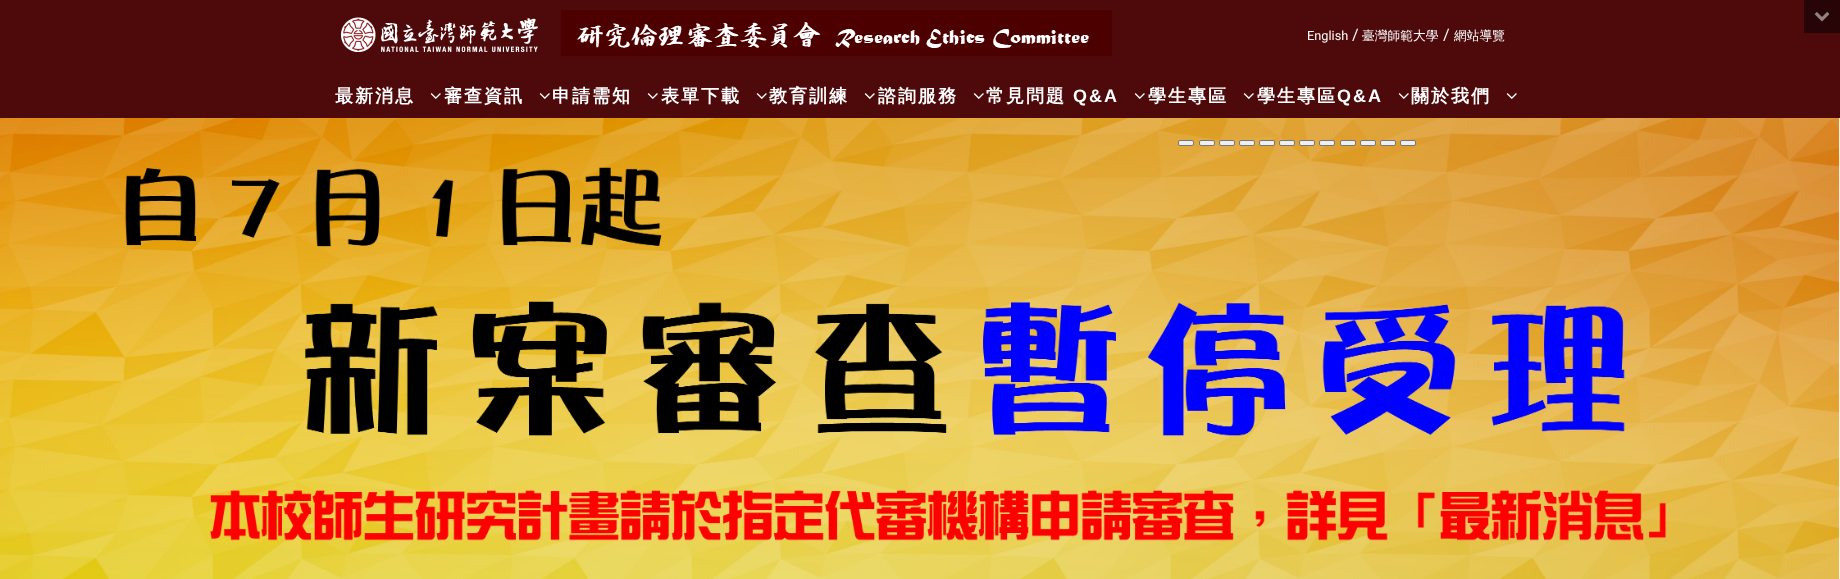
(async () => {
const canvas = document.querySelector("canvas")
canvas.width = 1840
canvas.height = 579
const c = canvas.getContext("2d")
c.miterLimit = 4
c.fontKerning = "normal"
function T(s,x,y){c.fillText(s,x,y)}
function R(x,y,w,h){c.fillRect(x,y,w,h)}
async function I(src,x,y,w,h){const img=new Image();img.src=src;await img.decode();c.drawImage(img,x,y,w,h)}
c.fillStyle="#4e090b"
R(0,0,1840,579)
c.fillStyle="#270506"
R(1804,0,36,33)
await I("1.png",1814,12,16,10)
await I("2.png",341,17,197,35)
await I("3.png",561,10,551,46)
c.font="12.75px Roboto"
c.fillStyle="#fff"
T("English",1307,40)
c.font="16px Roboto"
T("/",1352,40)
c.font="500 12.75px WenQuanYi Zen Hei"
T("臺灣師範大學",1362,40)
c.font="16px Roboto"
T("/",1443,40)
c.font="500 12.75px WenQuanYi Zen Hei"
T("網站導覽",1454,40)
c.letterSpacing="2px"
c.font="bold 18px WenQuanYi Zen Hei"
T("最新消息",335,102)
await I("4.png",430,93,11,6)
T("審查資訊",444,102)
await I("4.png",539,93,11,6)
T("申請需知",552,102)
await I("4.png",647,93,11,6)
T("表單下載",661,102)
await I("4.png",756,93,11,6)
T("教育訓練",769,102)
await I("4.png",864,93,11,6)
T("諮詢服務",878,102)
await I("4.png",973,93,11,6)
T("常見問題",986,102)
c.font="bold 18px Liberation Sans"
T("Q&A",1073,102)
await I("4.png",1134,93,11,6)
c.font="bold 18px WenQuanYi Zen Hei"
T("學生專區",1148,102)
await I("4.png",1243,93,11,6)
T("學生專區",1257,102)
c.font="bold 18px Liberation Sans"
T("Q&A",1337,102)
await I("4.png",1398,93,11,6)
c.font="bold 18px WenQuanYi Zen Hei"
T("關於我們",1411,102)
await I("4.png",1506,93,11,6)
await I("5.png",0,118,1840,461)
c.fillStyle="#efefef"
c.beginPath()
c.roundRect(1178.5,140.5,15,5,1.5)
c.fill()
c.strokeStyle="#767676"
c.stroke()
c.beginPath()
c.roundRect(1199.5,140.5,15,5,1.5)
c.fill()
c.stroke()
c.beginPath()
c.roundRect(1219.5,140.5,15,5,1.5)
c.fill()
c.stroke()
c.beginPath()
c.roundRect(1239.5,140.5,15,5,1.5)
c.fill()
c.stroke()
c.beginPath()
c.roundRect(1259.5,140.5,15,5,1.5)
c.fill()
c.stroke()
c.beginPath()
c.roundRect(1279.5,140.5,15,5,1.5)
c.fill()
c.stroke()
c.beginPath()
c.roundRect(1299.5,140.5,15,5,1.5)
c.fill()
c.stroke()
c.beginPath()
c.roundRect(1319.5,140.5,15,5,1.5)
c.fill()
c.stroke()
c.beginPath()
c.roundRect(1340.5,140.5,15,5,1.5)
c.fill()
c.stroke()
c.beginPath()
c.roundRect(1360.5,140.5,15,5,1.5)
c.fill()
c.stroke()
c.beginPath()
c.roundRect(1380.5,140.5,15,5,1.5)
c.fill()
c.stroke()
c.beginPath()
c.roundRect(1400.5,140.5,15,5,1.5)
c.fill()
c.stroke()
})()
